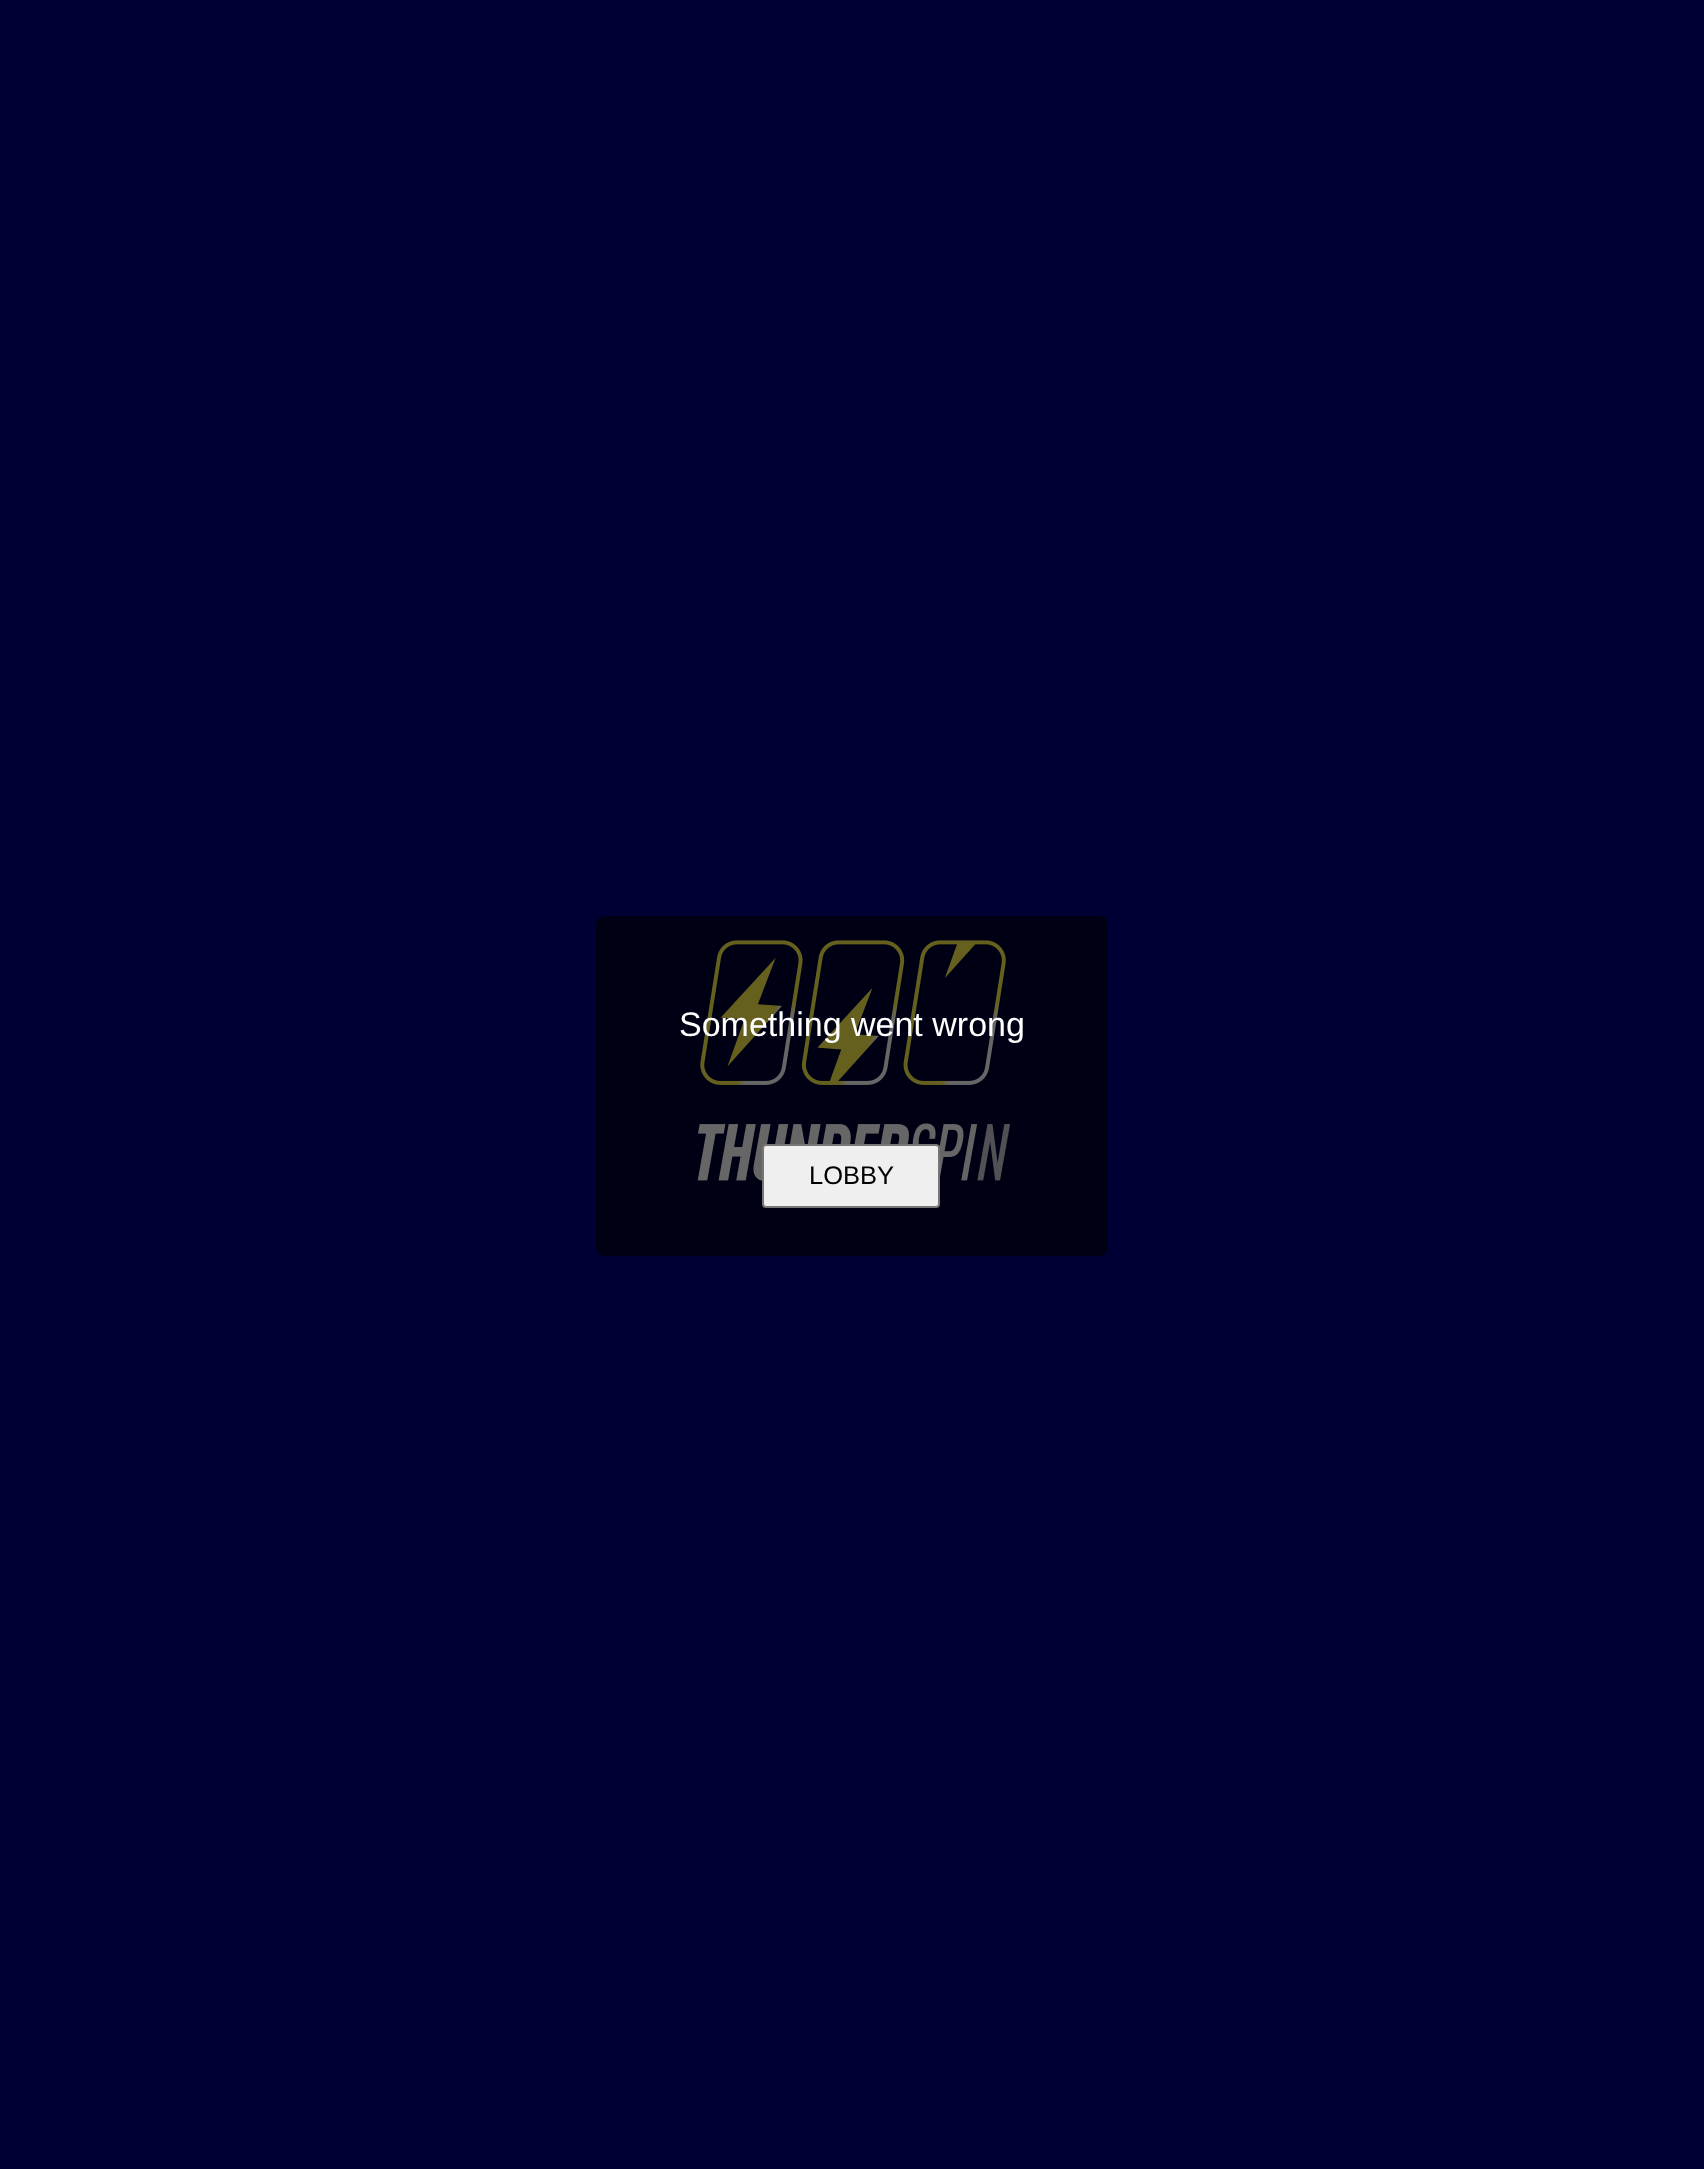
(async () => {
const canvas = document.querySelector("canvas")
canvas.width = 1704
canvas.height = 2169
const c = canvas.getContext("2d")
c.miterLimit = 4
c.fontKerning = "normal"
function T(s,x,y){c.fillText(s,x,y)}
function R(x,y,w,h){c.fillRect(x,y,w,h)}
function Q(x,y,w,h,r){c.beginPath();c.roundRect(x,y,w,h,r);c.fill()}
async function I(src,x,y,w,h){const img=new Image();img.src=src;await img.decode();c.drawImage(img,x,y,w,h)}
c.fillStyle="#000034"
R(0,0,1704,2169)
await I("1.png",697,940,314,241)
c.fillStyle="#00000099"
Q(596,916,512,340,8)
c.font="34px Liberation Sans"
c.fillStyle="#fff"
T("Something went wrong",679,1036)
c.fillStyle="#efefef"
c.beginPath()
c.roundRect(763,1145,176,62,3)
c.fill()
c.strokeStyle="#767676"
c.lineWidth=2
c.stroke()
c.font="25.5px Liberation Sans"
c.fillStyle="#000"
T("LOBBY",809,1184)
})()
